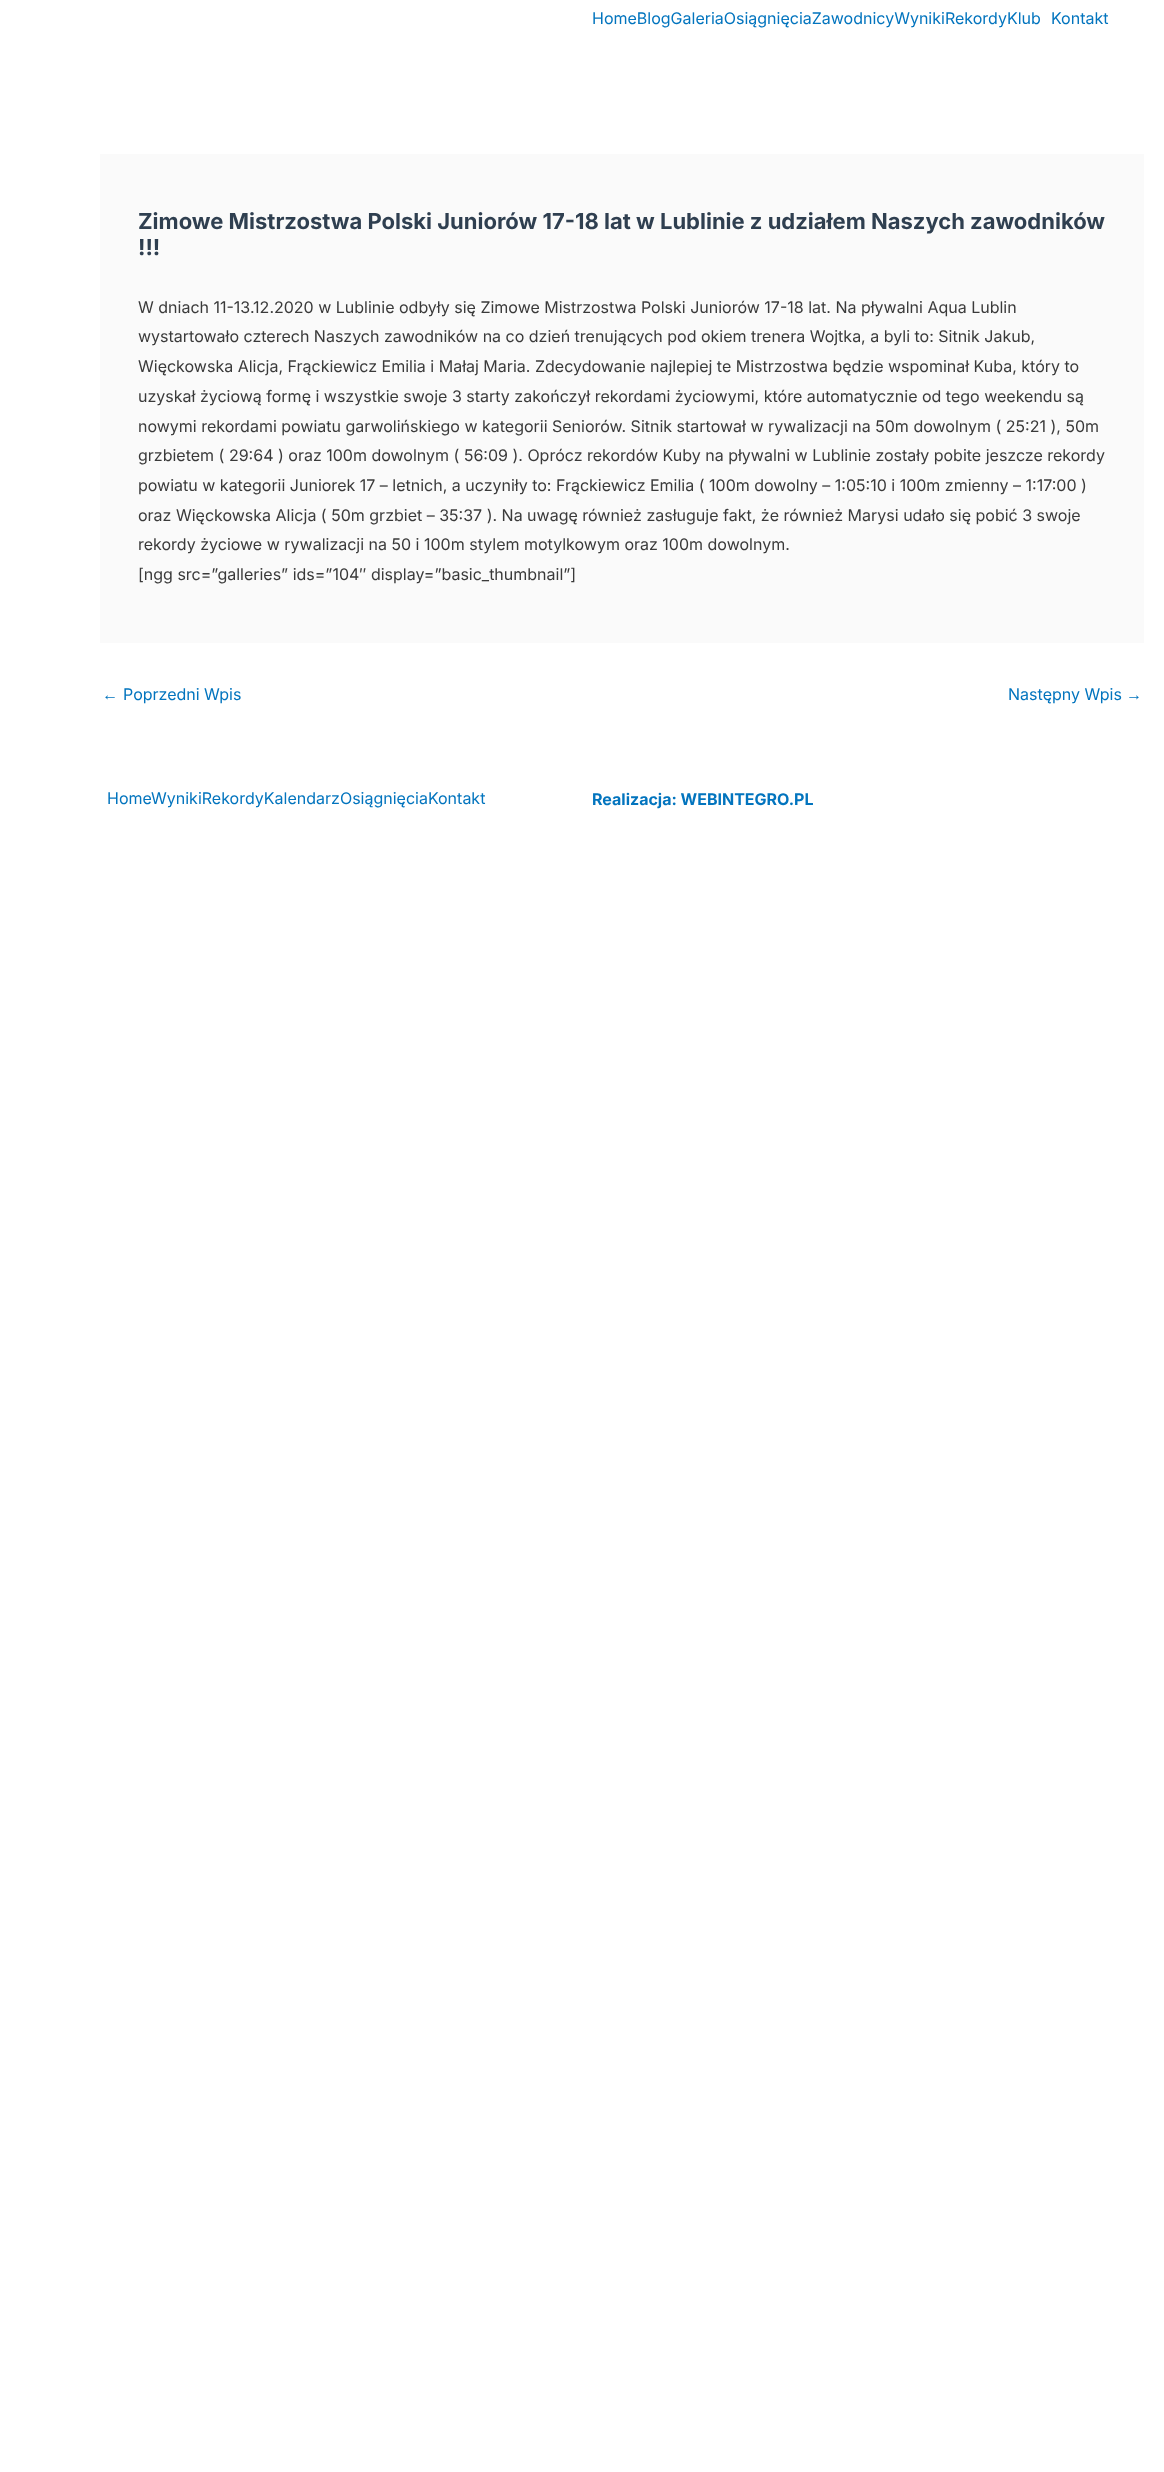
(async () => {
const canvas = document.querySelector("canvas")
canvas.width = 1164
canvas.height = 2472
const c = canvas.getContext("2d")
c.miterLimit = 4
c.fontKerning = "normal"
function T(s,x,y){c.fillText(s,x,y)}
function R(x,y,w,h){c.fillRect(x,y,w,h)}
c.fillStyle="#fff"
R(0,0,1164,2472)
c.font="16px Inter"
c.fillStyle="#0274be"
T("HomeBlogGaleriaOsiągnięciaZawodnicyWynikiRekordyKlub",592,24)
T("Kontakt",1051,24)
c.fillStyle="#fafafa"
R(100,154,1044,489)
c.font="bold 22px Inter"
c.fillStyle="#2f3f50"
T("Zimowe Mistrzostwa Polski Juniorów 17-18 lat w Lublinie z udziałem Naszych zawodników",138,229)
T("!!!",138,255)
c.font="16px Inter"
c.fillStyle="#3a3a3a"
T("W dniach 11-13.12.2020 w Lublinie odbyły się Zimowe Mistrzostwa Polski Juniorów 17-18 lat. Na pływalni Aqua Lublin",138,313)
T("wystartowało czterech Naszych zawodników na co dzień trenujących pod okiem trenera Wojtka, a byli to: Sitnik Jakub,",138,342)
T("Więckowska Alicja, Frąckiewicz Emilia i Małaj Maria. Zdecydowanie najlepiej te Mistrzostwa będzie wspominał Kuba, który to",138,372)
T("uzyskał życiową formę i wszystkie swoje 3 starty zakończył rekordami życiowymi, które automatycznie od tego weekendu są",138,402)
T("nowymi rekordami powiatu garwolińskiego w kategorii Seniorów. Sitnik startował w rywalizacji na 50m dowolnym ( 25:21 ), 50m",138,432)
T("grzbietem ( 29:64 ) oraz 100m dowolnym ( 56:09 ). Oprócz rekordów Kuby na pływalni w Lublinie zostały pobite jeszcze rekordy",138,461)
T("powiatu w kategorii Juniorek 17 – letnich, a uczyniły to: Frąckiewicz Emilia ( 100m dowolny – 1:05:10 i 100m zmienny – 1:17:00 )",138,491)
T("oraz Więckowska Alicja ( 50m grzbiet – 35:37 ). Na uwagę również zasługuje fakt, że również Marysi udało się pobić 3 swoje",138,521)
T("rekordy życiowe w rywalizacji na 50 i 100m stylem motylkowym oraz 100m dowolnym.",138,550)
T("[ngg src=”galleries” ids=”104″ display=”basic_thumbnail”]",138,580)
c.font="16px Liberation Sans"
c.fillStyle="#0274be"
T("←",102,700)
c.font="16px Inter"
T("Poprzedni Wpis",123,700)
T("Następny Wpis",1008,700)
c.font="16px Liberation Sans"
T("→",1126,700)
c.font="16px Inter"
T("HomeWynikiRekordyKalendarzOsiągnięciaKontakt",107,804)
c.font="bold 16px Inter"
T("Realizacja: WEBINTEGRO.PL",592,805)
})()
